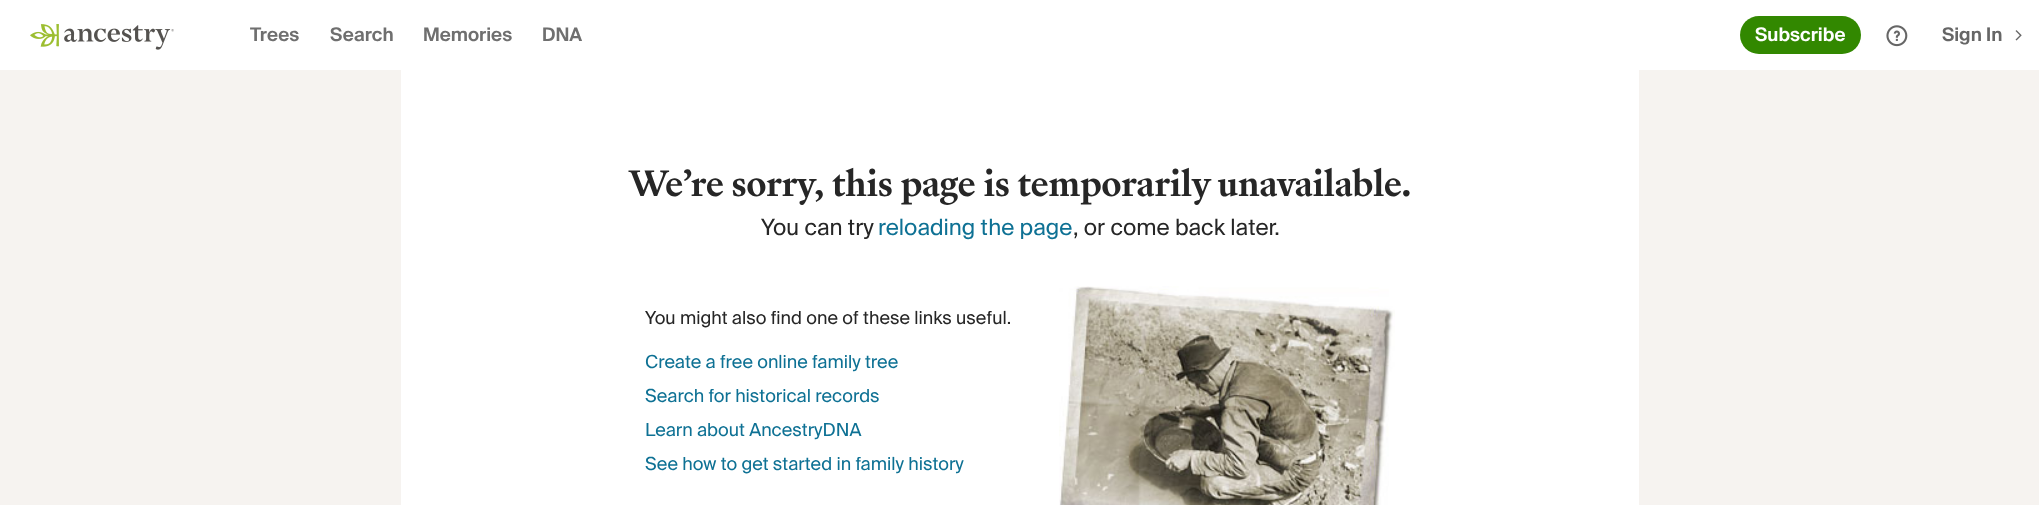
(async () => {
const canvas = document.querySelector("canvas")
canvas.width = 2039
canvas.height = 505
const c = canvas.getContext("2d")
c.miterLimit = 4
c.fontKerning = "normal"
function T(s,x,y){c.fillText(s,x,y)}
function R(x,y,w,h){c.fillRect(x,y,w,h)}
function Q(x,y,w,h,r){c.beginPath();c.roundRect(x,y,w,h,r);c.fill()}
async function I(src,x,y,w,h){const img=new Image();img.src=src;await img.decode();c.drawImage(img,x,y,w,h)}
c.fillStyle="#f6f3f0"
R(0,0,2039,505)
c.fillStyle="#fff"
R(0,0,2039,70)
await I("1.png",30,24,144,26)
c.font="600 18.75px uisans"
c.fillStyle="#6f6f6f"
T("Trees",250,41)
T("Search",330,41)
T("Memories",423,41)
T("DNA",542,41)
c.fillStyle="#328800"
Q(1740,16,121,38,19)
c.fillStyle="#fff"
T("Subscribe",1755,41)
await I("2.png",1886,25,22,22)
c.fillStyle="#666"
T("Sign In",1942,41)
await I("3.png",2015,30,7,11)
c.fillStyle="#fff"
R(401,70,1238,435)
c.letterSpacing="-0.6px"
c.font="bold 33.75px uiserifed"
c.fillStyle="#262626"
T("We’re sorry, this page is temporarily unavailable.",629,196)
c.letterSpacing="0px"
c.font="22.5px uisans"
T("You can try",761,235)
c.fillStyle="#0e7194"
T("reloading the page",878,235)
c.fillStyle="#262626"
T(", or come back later.",1073,235)
await I("4.png",1059,286,336,219)
c.font="18.1px uisans"
T("You might also find one of these links useful.",645,324)
c.fillStyle="#0e7194"
T("Create a free online family tree",645,368)
T("Search for historical records",645,402)
T("Learn about AncestryDNA",645,436)
T("See how to get started in family history",645,470)
})()
